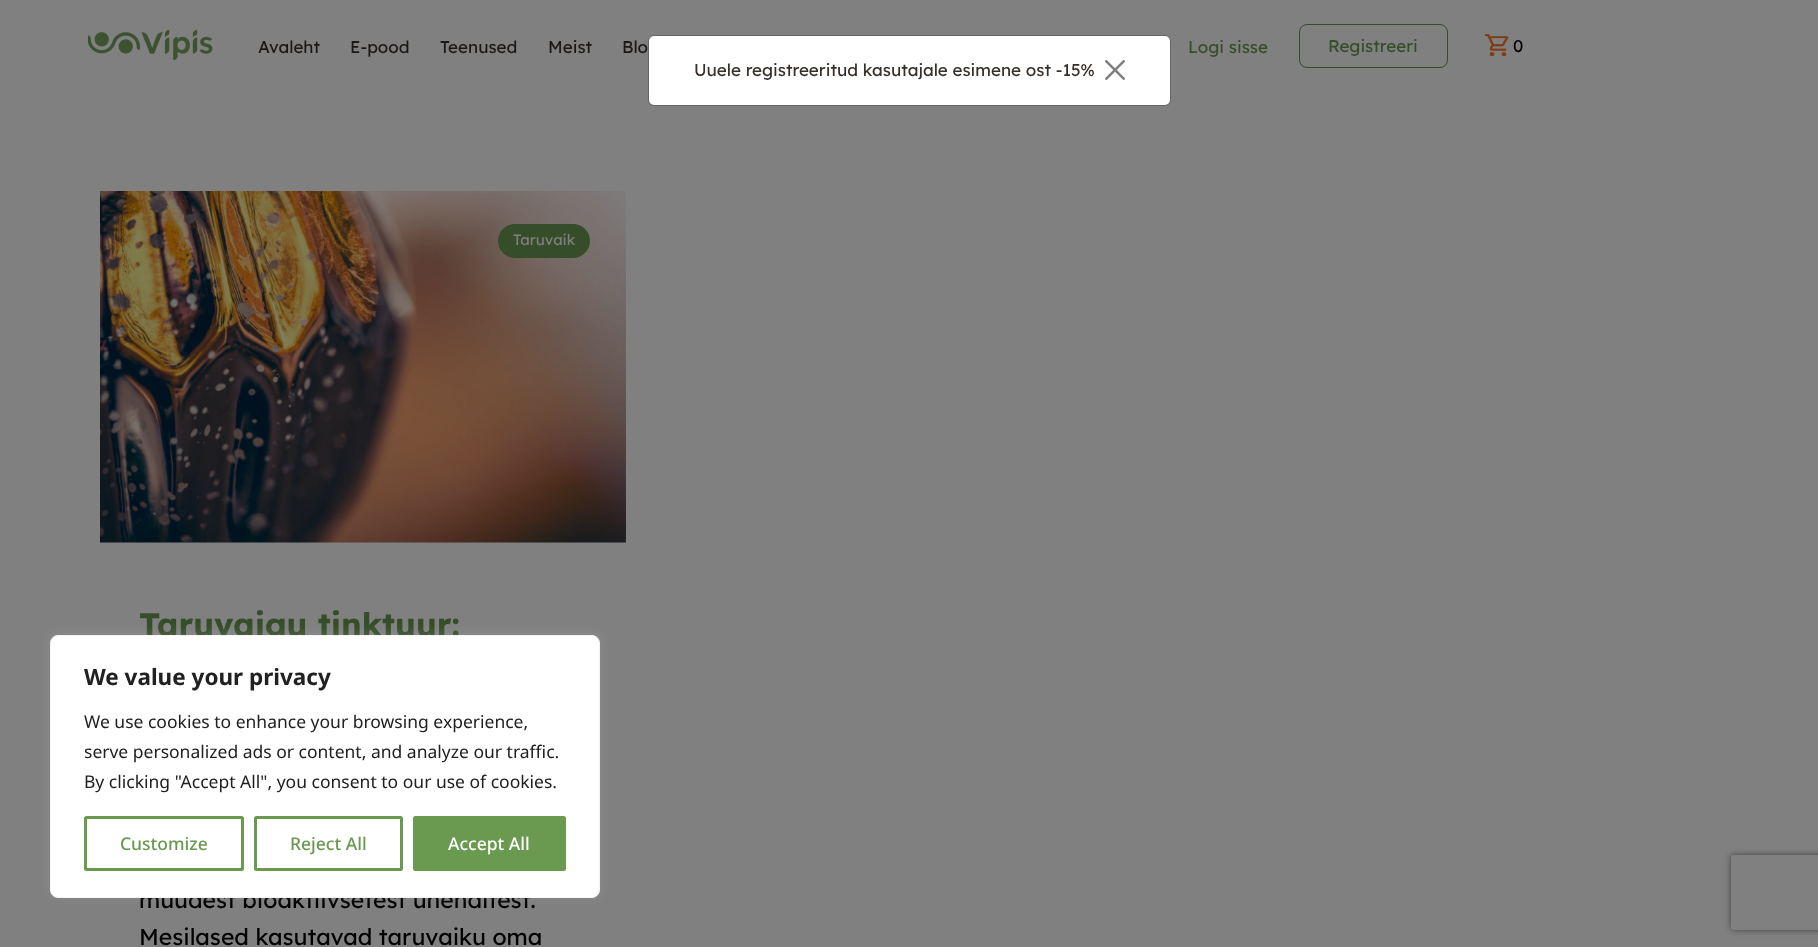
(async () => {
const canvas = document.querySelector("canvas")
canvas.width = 1818
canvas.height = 947
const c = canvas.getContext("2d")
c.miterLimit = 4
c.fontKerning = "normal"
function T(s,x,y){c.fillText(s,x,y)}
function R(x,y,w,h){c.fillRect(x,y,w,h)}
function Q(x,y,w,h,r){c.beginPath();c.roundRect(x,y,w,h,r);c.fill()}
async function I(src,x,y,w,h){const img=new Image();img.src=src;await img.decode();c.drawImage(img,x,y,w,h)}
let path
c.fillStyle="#808080"
R(0,0,1818,947)
await I("1.png",88,30,125,30)
c.font="17px Lexend"
c.fillStyle="#1c1815"
T("Avaleht",258,53)
T("E-pood",350,53)
T("Teenused",440,53)
T("Meist",548,53)
T("Blo",622,53)
c.fillStyle="#354d28"
T("Logi sisse",1188,53)
c.beginPath()
c.roundRect(1299.5,24.5,148,43,7.5)
c.strokeStyle="#354d28"
c.stroke()
T("Registreeri",1328,52)
await I("2.png",1485,34,24,22)
c.fillStyle="#000"
T("0",1513,52)
c.fillStyle="#fff"
Q(649,36,521,69,5)
c.beginPath()
c.roundRect(648.5,35.5,522,70,5.5)
c.strokeStyle="#00000033"
c.stroke()
c.fillStyle="#382f29"
T("Uuele registreeritud kasutajale esimene ost -15%",694,76)
await I("3.png",1105,60,20,20)
await I("4.png",100,191,526,352)
c.fillStyle="#354d28"
Q(498,224,92,34,17)
c.font="15px Lexend"
c.fillStyle="#808080"
T("Taruvaik",513,245)
c.font="bold 32.5px Lexend"
c.fillStyle="#354d28"
T("Taruvaigu tinktuur:",139,636)
c.font="23px Lexend"
c.fillStyle="#000"
T("muudest bioaktiivsetest ühenditest.",139,908)
T("Mesilased kasutavad taruvaiku oma",139,945)
c.fillStyle="#acabab4d"
c.filter="blur(6px)"
c.beginPath()
c.roundRect(50,634,550,262,8)
c.fill()
c.filter="none"
c.fillStyle="#fff"
c.beginPath()
c.roundRect(50.5,635.5,549,262,7.5)
c.fill()
c.strokeStyle="#f4f4f4"
c.stroke()
c.font="bold 22.5px Noto Sans"
c.fillStyle="#212121"
T("We value your privacy",84,685)
c.font="17.5px Noto Sans"
T("We use cookies to enhance your browsing experience,",84,728)
T("serve personalized ads or content, and analyze our traffic.",84,758)
T("By clicking \"Accept All\", you consent to our use of cookies.",84,788)
c.beginPath()
c.roundRect(85.5,817.5,157,52,1)
c.strokeStyle="#699a4f"
c.lineWidth=3
c.stroke()
c.font="500 17.5px Noto Sans"
c.fillStyle="#699a4f"
T("Customize",120,850)
c.beginPath()
c.roundRect(255.5,817.5,146,52,1)
c.stroke()
T("Reject All",290,850)
c.beginPath()
c.roundRect(414.5,817.5,150,52,1)
c.fill()
c.stroke()
c.fillStyle="#fff"
T("Accept All",448,850)
c.save()
path = new Path2D("M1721 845h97v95h-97zm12.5 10h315c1.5 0 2.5 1 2.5 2.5v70c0 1.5-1 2.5-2.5 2.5h-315c-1.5 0-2.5-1-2.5-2.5v-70c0-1.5 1-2.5 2.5-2.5z")
c.clip(path,"evenodd")
c.fillStyle="#404040"
c.filter="blur(3px)"
c.beginPath()
c.roundRect(1731,855,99,75,2.5)
c.fill()
c.filter="none"
c.restore()
})()
